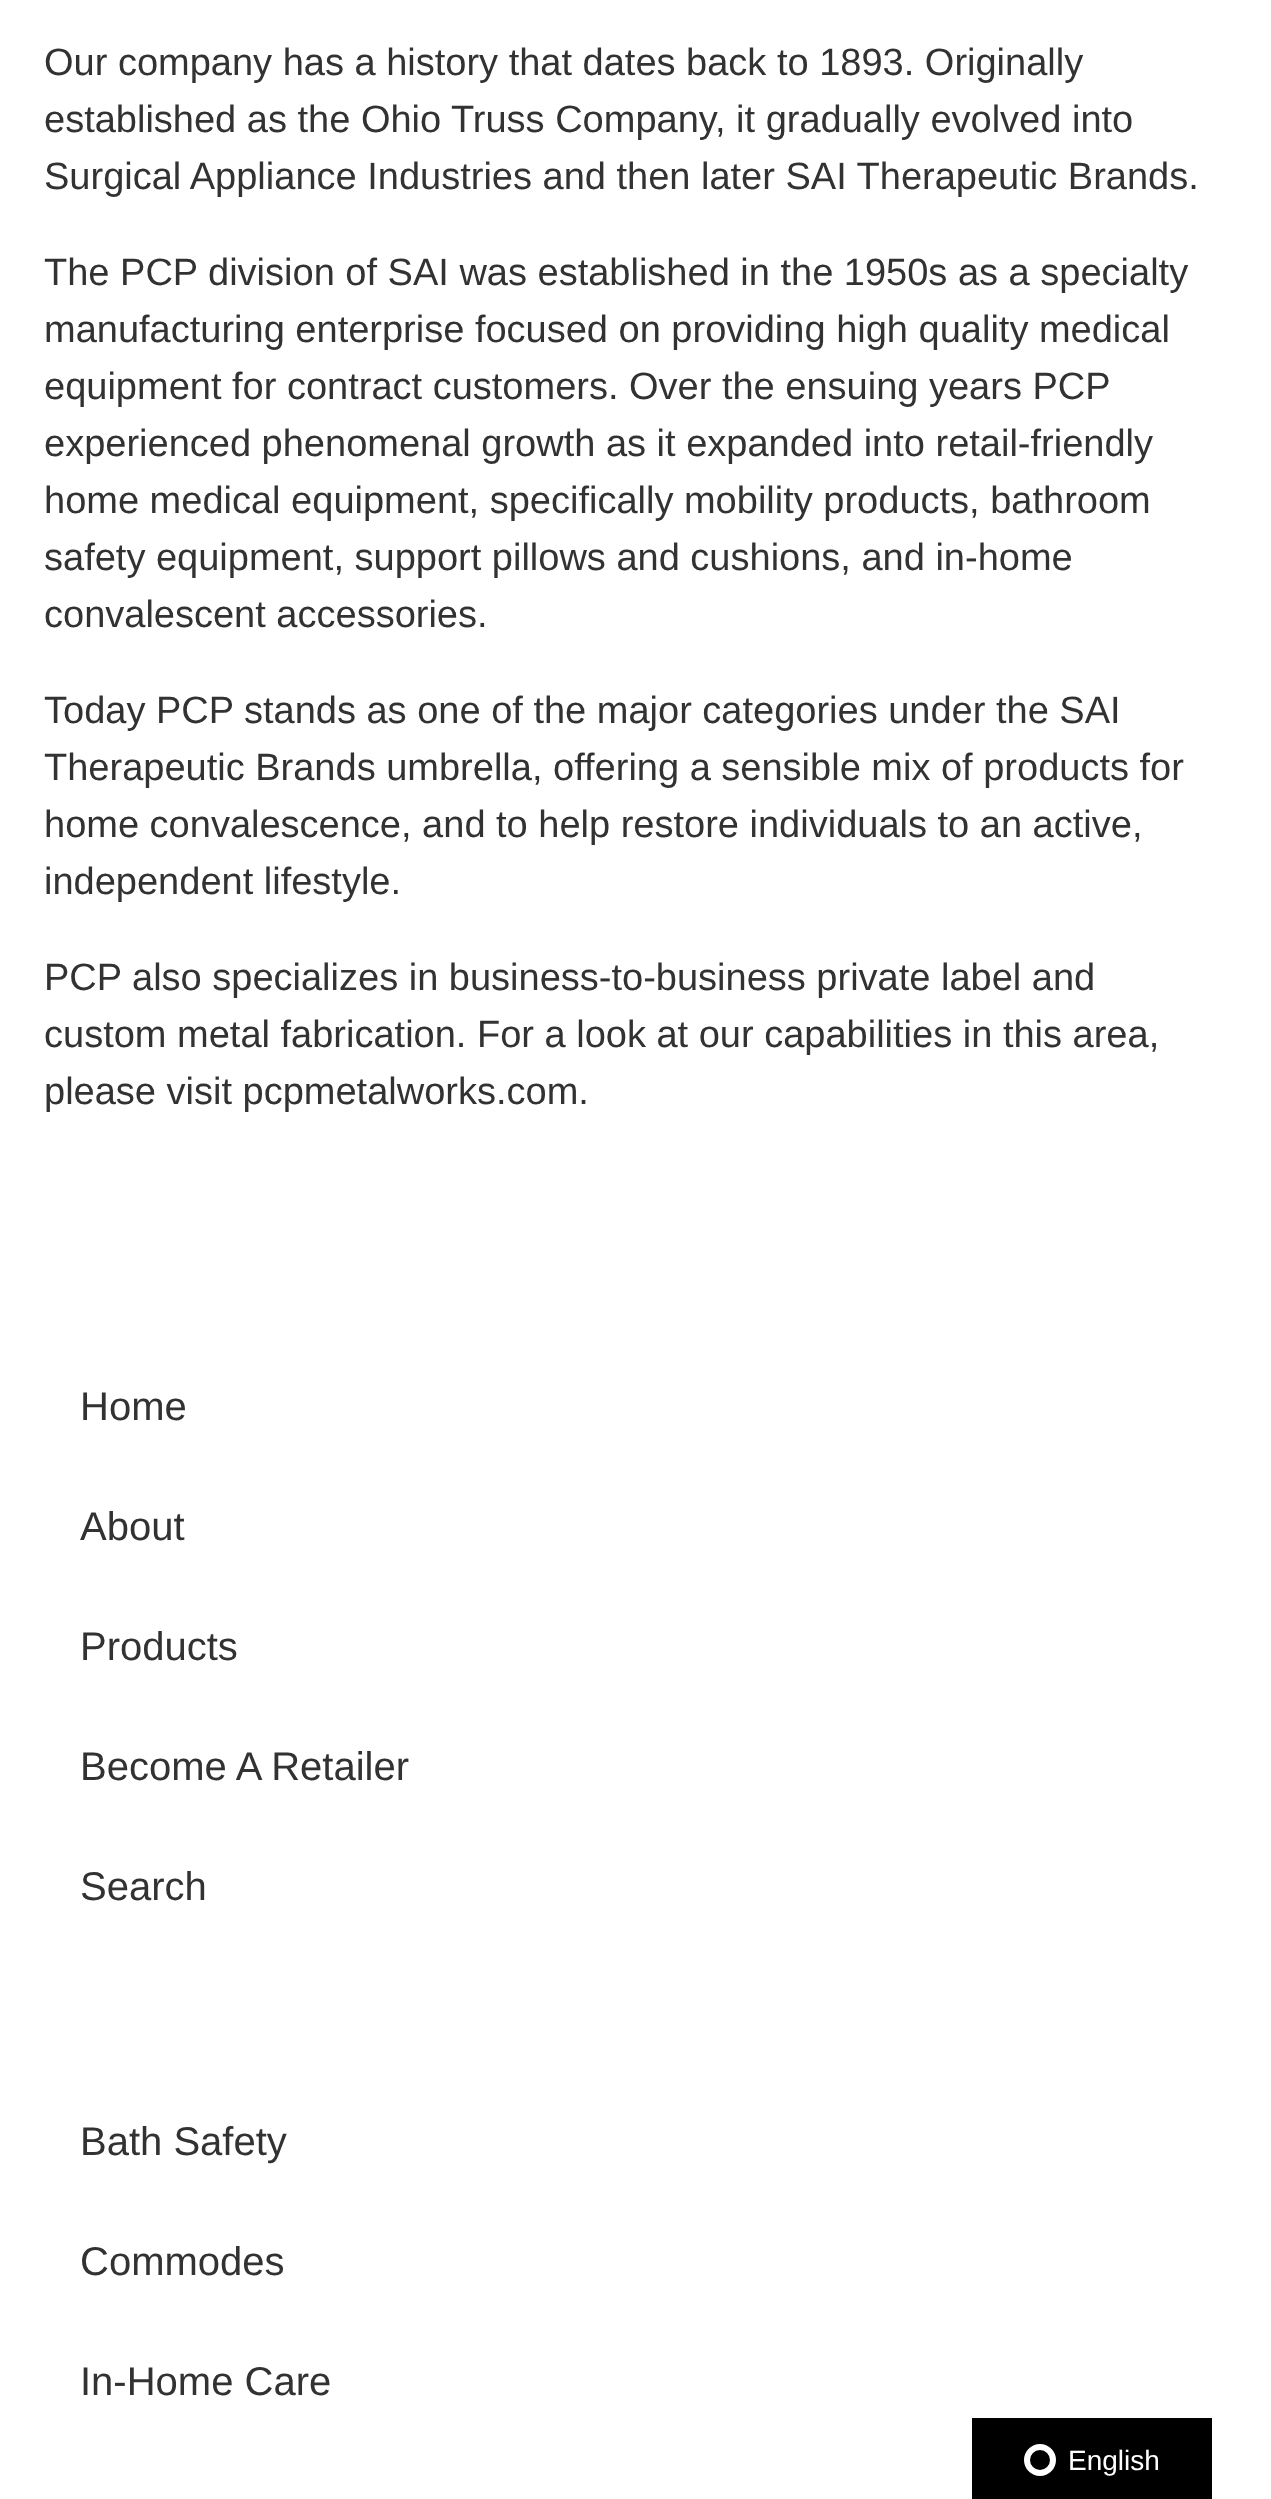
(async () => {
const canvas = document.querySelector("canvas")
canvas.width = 1271
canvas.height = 2499
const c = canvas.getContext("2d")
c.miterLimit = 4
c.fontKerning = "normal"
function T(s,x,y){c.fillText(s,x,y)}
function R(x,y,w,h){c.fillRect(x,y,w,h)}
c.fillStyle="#fff"
R(0,0,1271,2499)
c.font="38px Liberation Sans"
c.fillStyle="#333232"
T("Our company has a history that dates back to 1893. Originally",44,75)
T("established as the Ohio Truss Company, it gradually evolved into",44,132)
T("Surgical Appliance Industries and then later SAI Therapeutic Brands.",44,189)
T("The PCP division of SAI was established in the 1950s as a specialty",44,285)
T("manufacturing enterprise focused on providing high quality medical",44,342)
T("equipment for contract customers. Over the ensuing years PCP",44,399)
T("experienced phenomenal growth as it expanded into retail-friendly",44,456)
T("home medical equipment, specifically mobility products, bathroom",44,513)
T("safety equipment, support pillows and cushions, and in-home",44,570)
T("convalescent accessories.",44,627)
T("Today PCP stands as one of the major categories under the SAI",44,723)
T("Therapeutic Brands umbrella, offering a sensible mix of products for",44,780)
T("home convalescence, and to help restore individuals to an active,",44,837)
T("independent lifestyle.",44,894)
T("PCP also specializes in business-to-business private label and",44,990)
T("custom metal fabrication. For a look at our capabilities in this area,",44,1047)
T("please visit pcpmetalworks.com.",44,1104)
c.font="40px Liberation Sans"
T("Home",80,1420)
T("About",80,1540)
T("Products",80,1660)
T("Become A Retailer",80,1780)
T("Search",80,1900)
T("Bath Safety",80,2155)
T("Commodes",80,2275)
T("In-Home Care",80,2395)
c.fillStyle="#000"
R(972,2418,240,81)
c.beginPath()
c.arc(1040,2460,13,0,7)
c.strokeStyle="#fff"
c.lineWidth=6
c.stroke()
c.font="28px Liberation Sans"
c.fillStyle="#fff"
T("English",1068,2470)
})()
